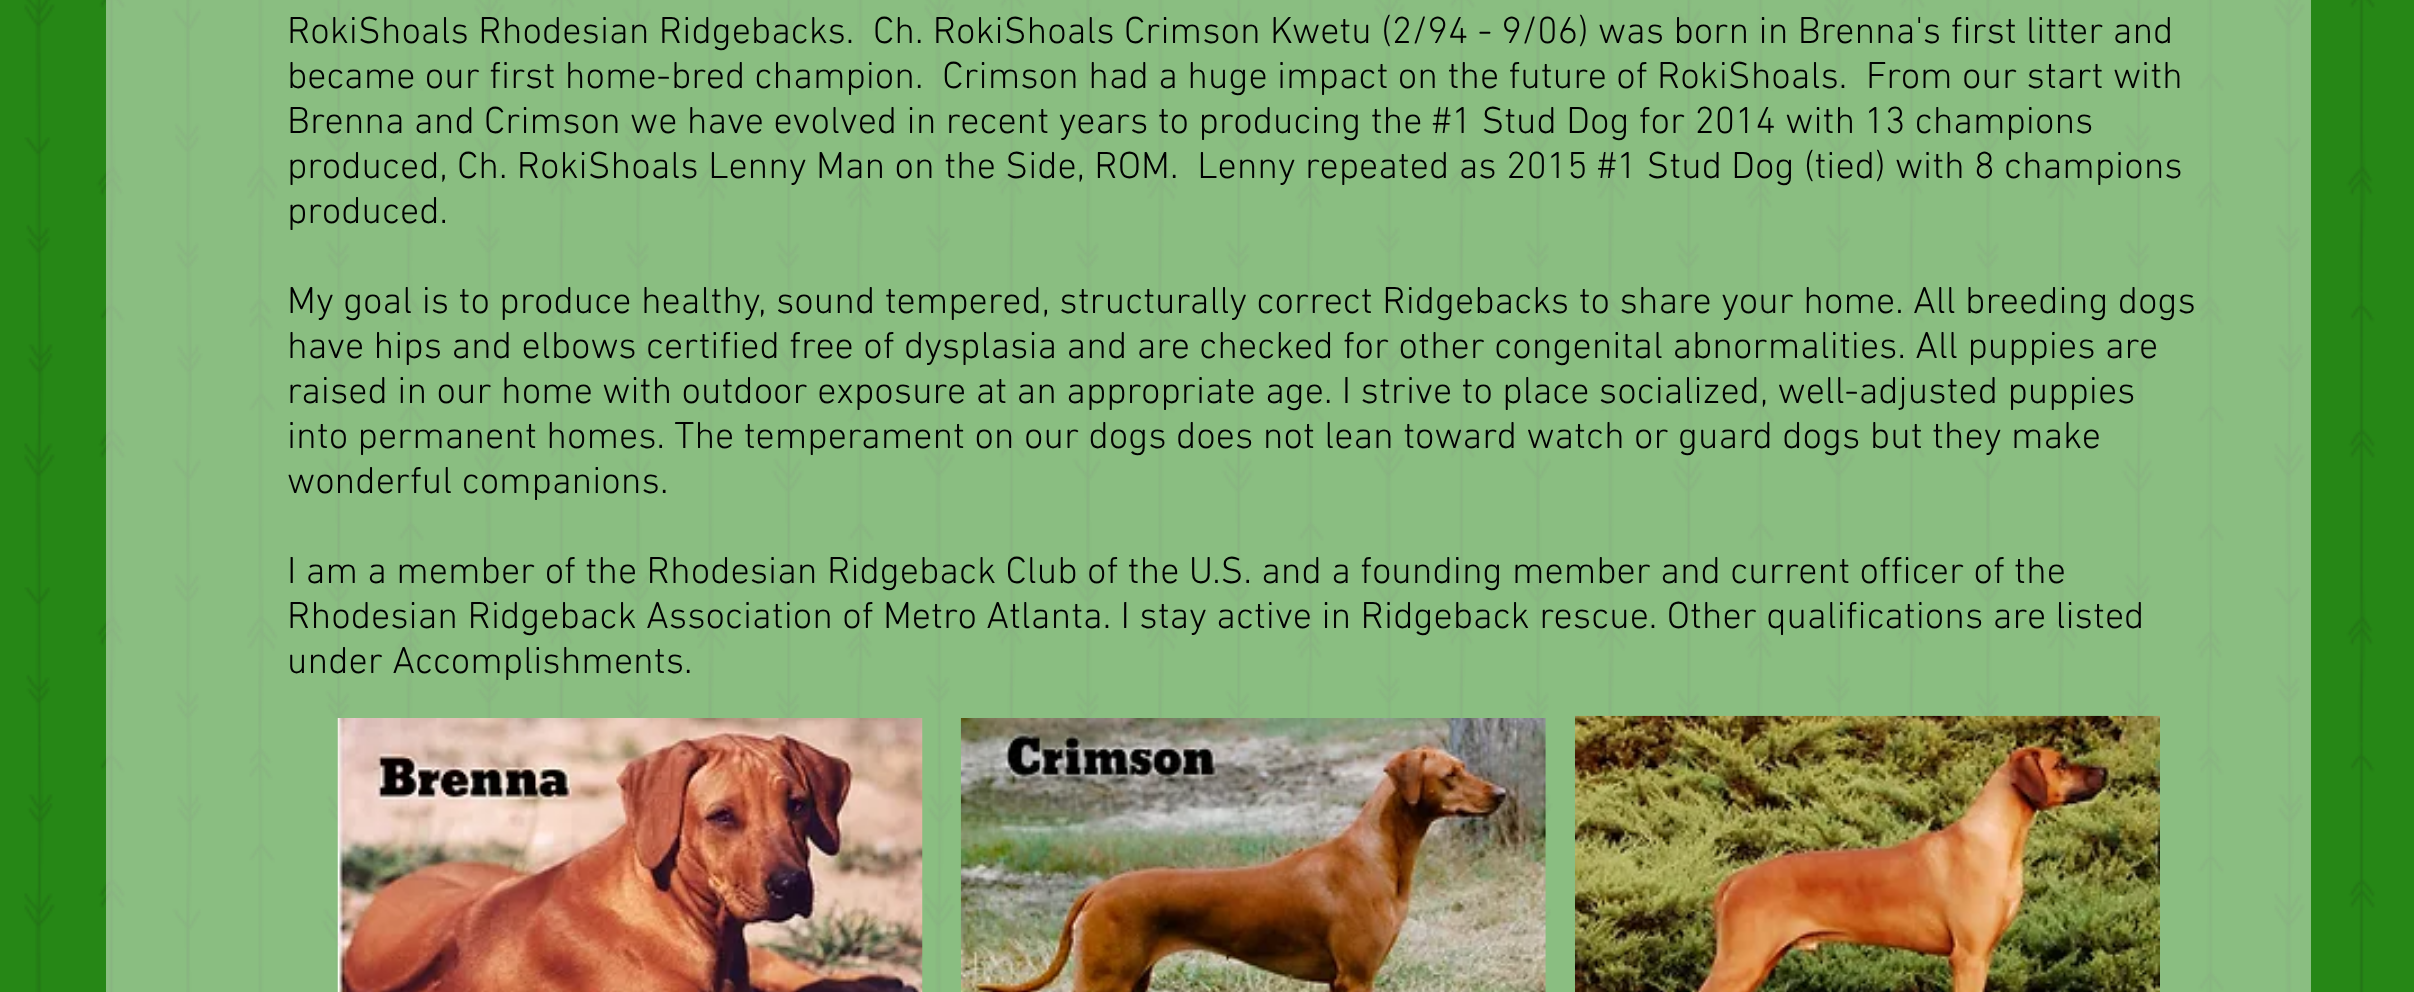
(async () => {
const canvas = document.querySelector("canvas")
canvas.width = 2414
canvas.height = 992
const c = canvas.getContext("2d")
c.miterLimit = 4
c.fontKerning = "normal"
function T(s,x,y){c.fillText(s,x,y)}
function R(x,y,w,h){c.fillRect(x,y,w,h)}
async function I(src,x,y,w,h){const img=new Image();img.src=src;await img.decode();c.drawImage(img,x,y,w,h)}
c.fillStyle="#268716"
R(0,0,2414,992)
c.fillStyle="#8abe81"
R(106,0,2205,992)
await I("1.png",24,0,2351,992)
c.font="300 38.25px 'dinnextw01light'"
c.fillStyle="#000"
T("RokiShoals Rhodesian Ridgebacks.  Ch. RokiShoals Crimson Kwetu (2/94 - 9/06) was born in Brenna's first litter and",287,43)
T("became our first home-bred champion.  Crimson had a huge impact on the future of RokiShoals.  From our start with",287,88)
T("Brenna and Crimson we have evolved in recent years to producing the #1 Stud Dog for 2014 with 13 champions",287,133)
T("produced, Ch. RokiShoals Lenny Man on the Side, ROM.  Lenny repeated as 2015 #1 Stud Dog (tied) with 8 champions",287,178)
T("produced.",287,223)
T("My goal is to produce healthy, sound tempered, structurally correct Ridgebacks to share your home. All breeding dogs",287,313)
T("have hips and elbows certified free of dysplasia and are checked for other congenital abnormalities. All puppies are",287,358)
T("raised in our home with outdoor exposure at an appropriate age. I strive to place socialized, well-adjusted puppies",287,403)
T("into permanent homes. The temperament on our dogs does not lean toward watch or guard dogs but they make",287,448)
T("wonderful companions.",287,493)
T("I am a member of the Rhodesian Ridgeback Club of the U.S. and a founding member and current officer of the",287,583)
T("Rhodesian Ridgeback Association of Metro Atlanta. I stay active in Ridgeback rescue. Other qualifications are listed",287,628)
T("under Accomplishments.",287,673)
await I("2.png",337,718,586,274)
await I("3.png",960,718,586,274)
await I("4.png",1575,715,585,277)
})()
